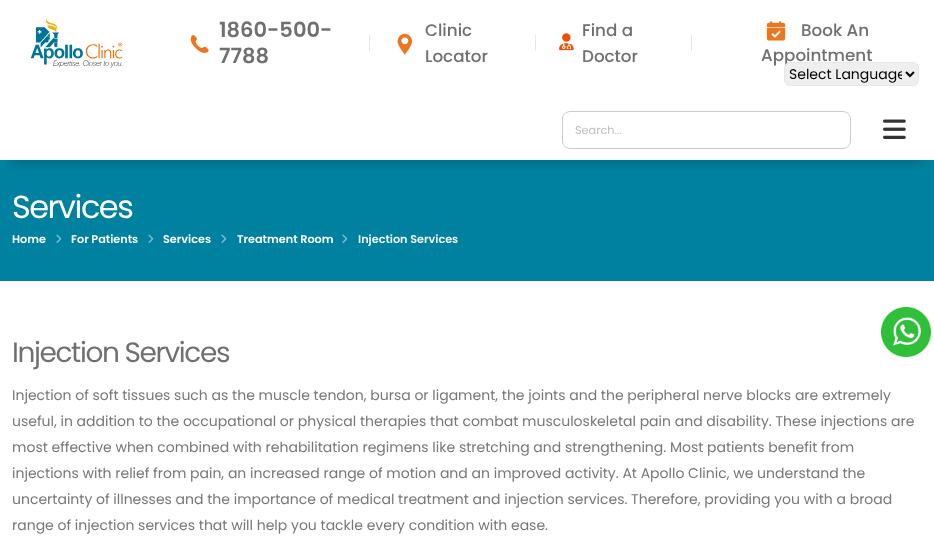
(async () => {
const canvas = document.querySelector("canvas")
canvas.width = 934
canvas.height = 557
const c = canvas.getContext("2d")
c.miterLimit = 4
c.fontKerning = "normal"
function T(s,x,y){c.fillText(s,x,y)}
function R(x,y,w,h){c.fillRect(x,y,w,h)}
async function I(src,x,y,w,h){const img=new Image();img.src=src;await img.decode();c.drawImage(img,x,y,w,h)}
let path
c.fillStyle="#fff"
R(0,0,934,557)
await I("1.png",30,19,93,49)
c.font="600 21px Poppins"
c.fillStyle="#707070"
T("1860-500-",219,37)
await I("2.png",190,35,19,18)
T("7788",219,63)
c.fillStyle="#e6e6e6"
R(369,35,1,16)
c.font="500 16.75px Poppins"
c.fillStyle="#707070"
T("Clinic",425,36)
await I("3.png",397,33,15,22)
T("Locator",425,62)
c.fillStyle="#e6e6e6"
R(535,35,1,16)
c.fillStyle="#707070"
T("Find a",582,36)
await I("4.png",559,33,15,18)
T("Doctor",582,62)
c.fillStyle="#e6e6e6"
R(691,35,1,16)
await I("5.png",766,21,20,20)
c.fillStyle="#707070"
T("Book An",801,36)
T("Appointment",761,61)
c.fillStyle="#0081a0"
R(0,160,934,121)
c.save()
c.beginPath()
c.rect(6,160,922,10)
c.clip()
c.fillStyle="#00000033"
c.filter="blur(6px)"
c.beginPath()
c.rect(12,126,910,36)
c.fill()
c.filter="none"
c.restore()
c.fillStyle="#cacaca"
path = new Path2D("M570 111h242v38h-242c-4 0-8-4-8-8v-22c0-4 4-8 8-8zm0 1h242v36h-242c-4 0-7-3-7-7v-22c0-4 3-7 7-7z")
c.fill(path,"evenodd")
c.font="11.25px Poppins"
c.fillStyle="#bdbdbd"
T("Search...",575,134)
c.fillStyle="#cacaca"
path = new Path2D("M811 111h32c4 0 8 4 8 8v22c0 4-4 8-8 8h-32zm0 1h32c4 0 7 3 7 7v22c0 4-3 7-7 7h-32z")
c.fill(path,"evenodd")
await I("6.png",883,119,23,20)
c.letterSpacing="-1.5px"
c.font="32px Poppins"
c.fillStyle="#fff"
T("Services",12,218)
c.letterSpacing="0px"
c.font="600 11.25px Poppins"
T("Home",12,243)
await I("7.png",56,234,6,9)
T("For Patients",71,243)
await I("7.png",148,234,6,9)
T("Services",163,243)
await I("7.png",221,234,6,9)
T("Treatment Room",237,243)
await I("7.png",342,234,6,9)
c.fillStyle="#f4f4f4"
T("Injection Services",358,243)
c.letterSpacing="-1.4px"
c.font="28px Poppins"
c.fillStyle="#707070"
T("Injection Services",12,362)
c.letterSpacing="0px"
c.font="14px Poppins"
c.fillStyle="#777"
T("Injection of soft tissues such as the muscle tendon, bursa or ligament, the joints and the peripheral nerve blocks are extremely",12,400)
T("useful, in addition to the occupational or physical therapies that combat musculoskeletal pain and disability. These injections are",12,426)
T("most effective when combined with rehabilitation regimens like stretching and strengthening. Most patients benefit from",12,452)
T("injections with relief from pain, an increased range of motion and an improved activity. At Apollo Clinic, we understand the",12,478)
T("uncertainty of illnesses and the importance of medical treatment and injection services. Therefore, providing you with a broad",12,504)
T("range of injection services that will help you tackle every condition with ease.",12,530)
c.fillStyle="#efefef"
c.beginPath()
c.roundRect(784.5,62.5,134,23,5.5)
c.fill()
c.strokeStyle="#e5e7e9"
c.stroke()
path = new Path2D("M906 72l4 4l4-4")
c.strokeStyle="#000"
c.lineWidth=2
c.stroke(path)
c.save()
c.beginPath()
c.rect(789,63,113,22)
c.clip()
c.fillStyle="#000"
T("Select Language",789,79)
c.restore()
await I("8.png",881,307,50,50)
})()
